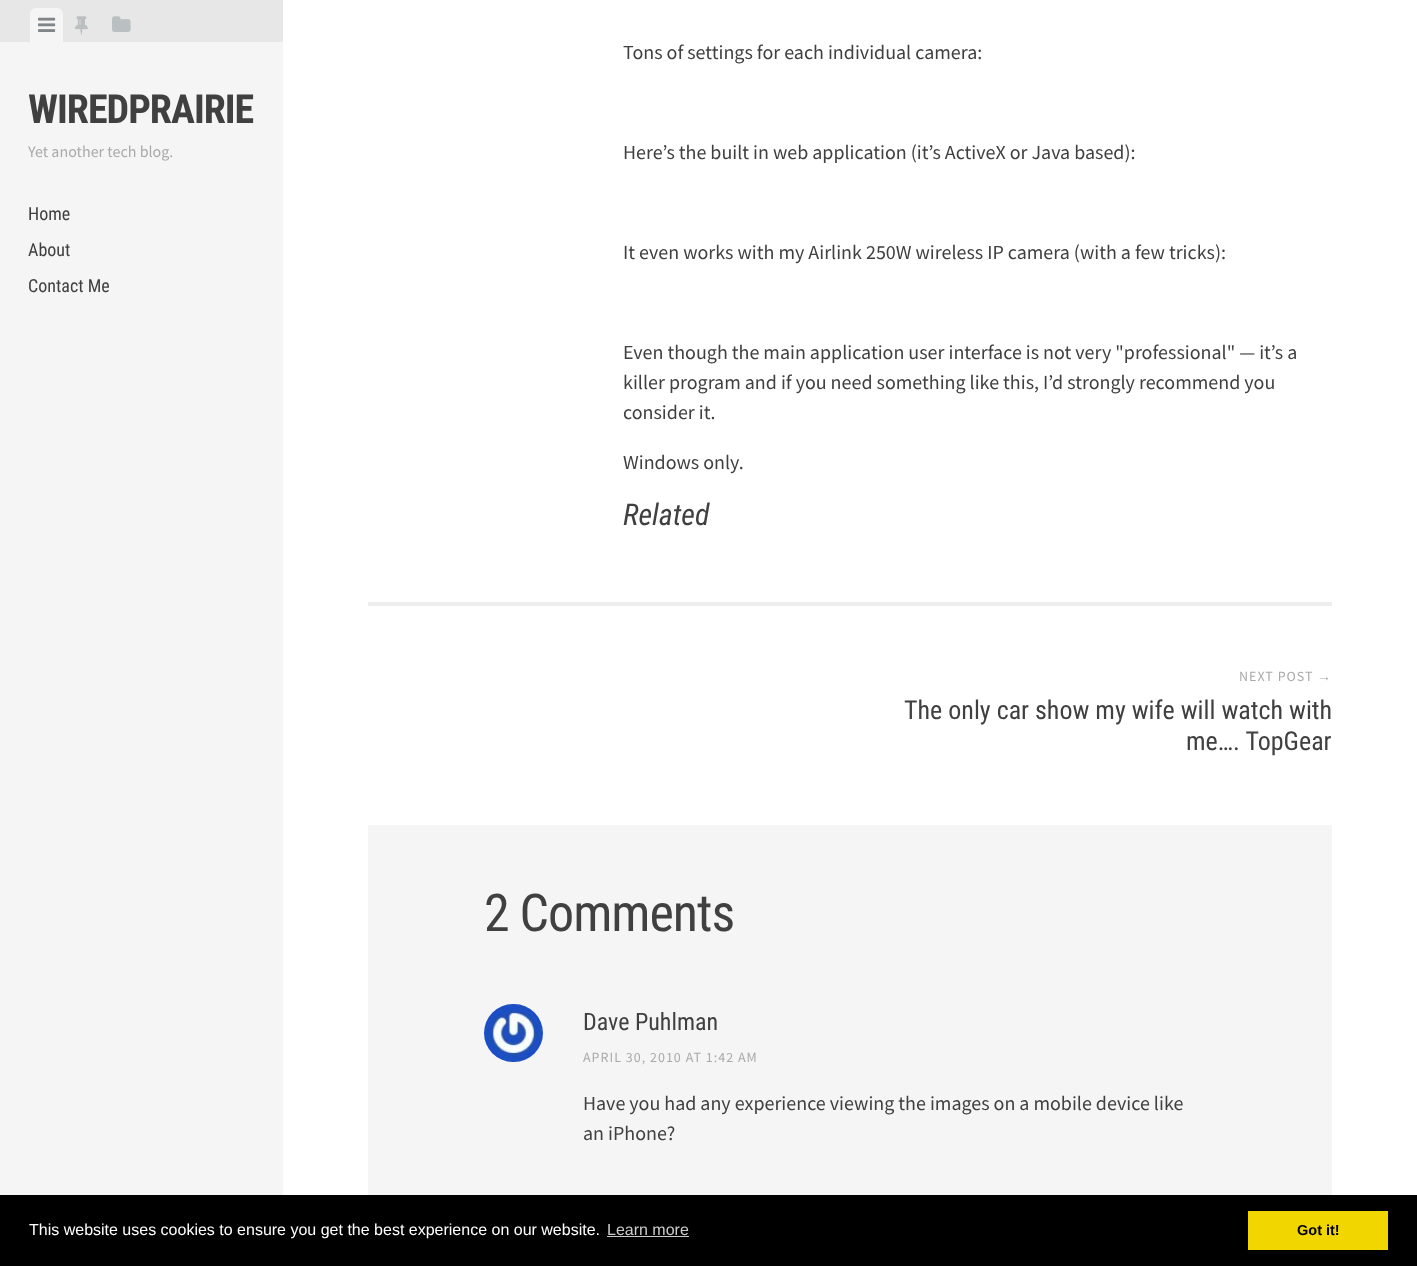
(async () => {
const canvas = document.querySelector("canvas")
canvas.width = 1417
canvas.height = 1266
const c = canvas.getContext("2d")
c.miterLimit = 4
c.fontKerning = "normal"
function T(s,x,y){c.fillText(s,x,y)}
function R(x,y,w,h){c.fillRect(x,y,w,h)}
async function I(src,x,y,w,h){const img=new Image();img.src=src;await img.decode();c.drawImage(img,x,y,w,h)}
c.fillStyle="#fff"
R(0,0,1417,1266)
c.fillStyle="#f5f5f5"
R(0,42,283,1153)
c.fillStyle="#e7e7e7"
R(0,0,283,42)
c.fillStyle="#f5f5f5"
c.beginPath()
c.roundRect(30,8,33,34,[6,6,0,0])
c.fill()
await I("1.png",38,17,18,15)
await I("2.png",75,16,13,19)
await I("3.png",112,16,19,16)
c.letterSpacing="-1px"
c.font="bold 40px Roboto Condensed"
c.fillStyle="#404040"
T("WIREDPRAIRIE",28,123)
c.letterSpacing="0px"
c.font="16px Source Sans Pro"
c.fillStyle="#aaa"
T("Yet another tech blog.",28,157)
c.font="18px Roboto Condensed"
c.fillStyle="#404040"
T("Home",28,220)
T("About",28,256)
T("Contact Me",28,292)
c.font="20px Source Sans Pro"
T("Tons of settings for each individual camera:",623,59)
T("Here’s the built in web application (it’s ActiveX or Java based):",623,159)
T("It even works with my Airlink 250W wireless IP camera (with a few tricks):",623,259)
T("Even though the main application user interface is not very \"professional\" — it’s a",623,359)
T("killer program and if you need something like this, I’d strongly recommend you",623,389)
T("consider it.",623,419)
T("Windows only.",623,469)
c.font="italic 30px Roboto Condensed"
T("Related",623,525)
c.fillStyle="#eee"
R(368,602,964,4)
c.letterSpacing="1px"
c.font="14px Source Sans Pro"
c.fillStyle="#aaa"
T("NEXT POST",1239,681)
c.font="14px Liberation Sans"
T("→",1317,681)
c.letterSpacing="0px"
c.font="26px Roboto Condensed"
c.fillStyle="#404040"
T("The only car show my wife will watch with",904,719)
T("me…. TopGear",1186,750)
c.fillStyle="#f5f5f5"
R(368,825,964,370)
c.letterSpacing="-1px"
c.font="52px Roboto Condensed"
c.fillStyle="#404040"
T("2 Comments",484,931)
await I("4.png",484,1004,59,58)
c.letterSpacing="0px"
c.font="24px Roboto Condensed"
T("Dave Puhlman",583,1030)
c.letterSpacing="1px"
c.font="14px Source Sans Pro"
c.fillStyle="#aaa"
T("APRIL 30, 2010 AT 1:42 AM",583,1062)
c.letterSpacing="0px"
c.font="20px Source Sans Pro"
c.fillStyle="#404040"
T("Have you had any experience viewing the images on a mobile device like",583,1110)
T("an iPhone?",583,1140)
c.fillStyle="#000"
R(0,1195,1417,71)
c.font="16px Liberation Sans"
c.fillStyle="#fff"
T("This website uses cookies to ensure you get the best experience on our website.",29,1235)
c.fillStyle="#ccc"
T("Learn more",607,1235)
R(607,1236,82,1)
c.fillStyle="#f1d600"
R(1248,1211,140,39)
c.font="bold 14.5px Liberation Sans"
c.fillStyle="#000"
T("Got it!",1297,1235)
})()
